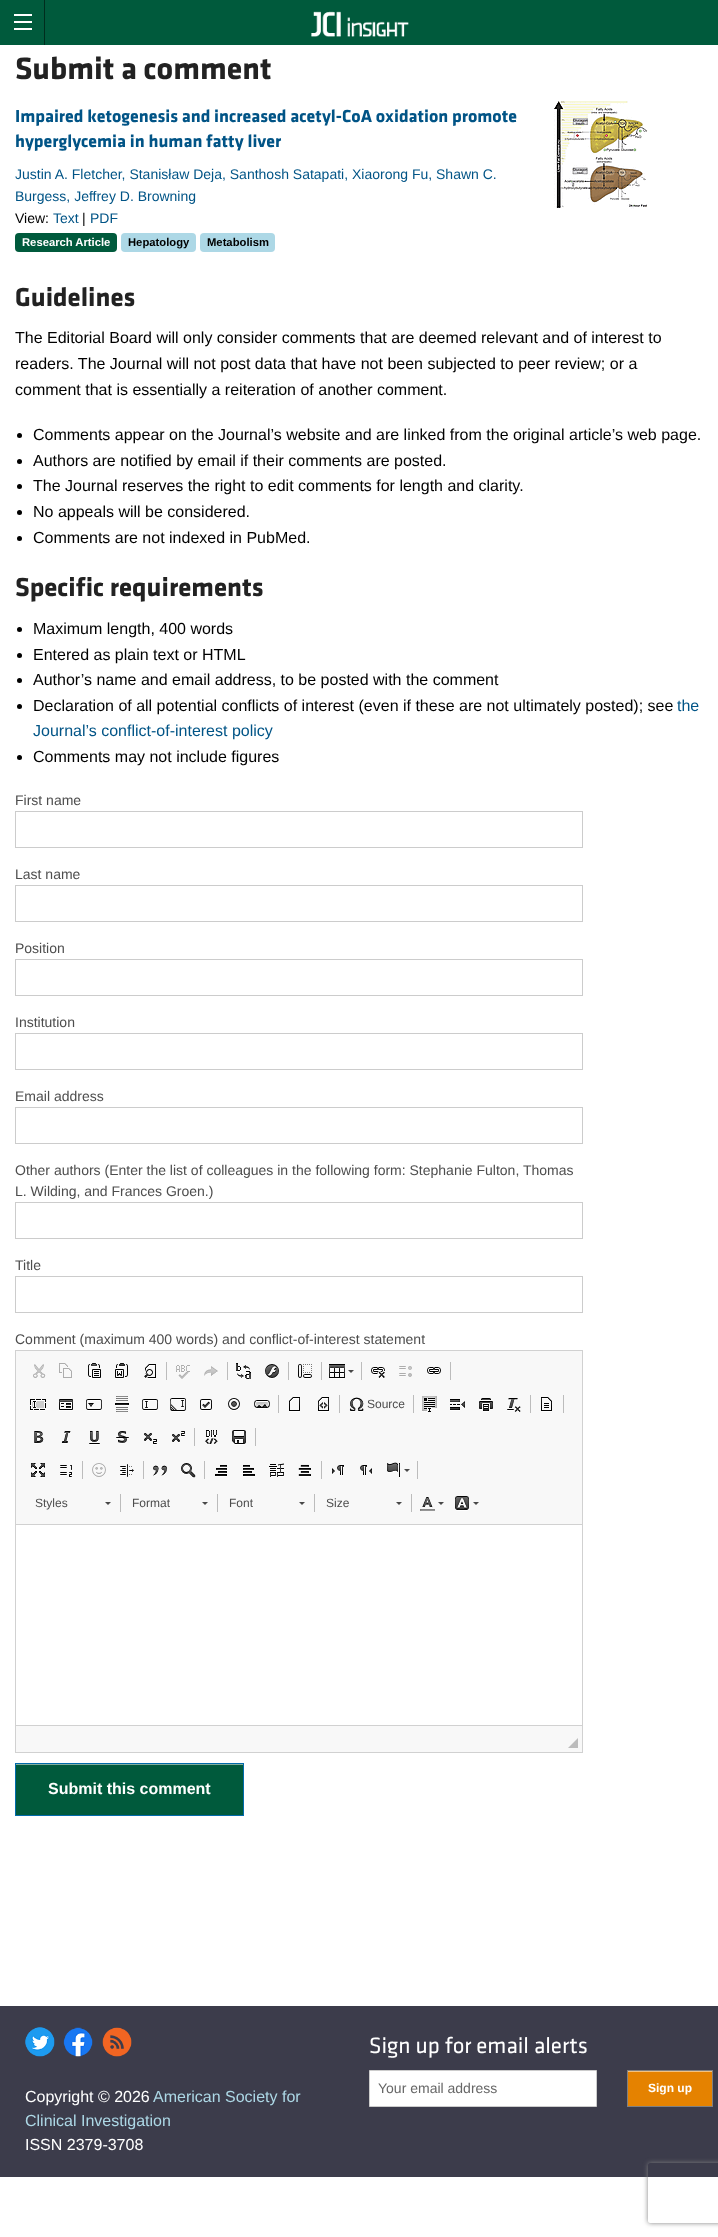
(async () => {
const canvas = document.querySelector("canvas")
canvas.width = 718
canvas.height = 2237
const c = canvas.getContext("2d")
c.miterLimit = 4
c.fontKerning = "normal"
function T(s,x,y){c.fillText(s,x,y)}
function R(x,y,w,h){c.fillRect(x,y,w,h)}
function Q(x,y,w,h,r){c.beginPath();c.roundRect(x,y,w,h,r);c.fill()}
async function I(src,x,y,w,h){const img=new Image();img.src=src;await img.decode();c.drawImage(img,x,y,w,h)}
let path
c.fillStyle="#fff"
R(0,0,718,2237)
c.fillStyle="#005a3c"
R(0,0,718,45)
c.fillStyle="#002d1e"
R(44,0,1,45)
c.fillStyle="#fff"
R(14,28,18,2)
R(14,21,18,2)
R(14,14,18,2)
await I("1.png",311,11,98,26)
c.font="bold 32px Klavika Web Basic"
c.fillStyle="#222"
T("Submit a comment",15,79)
c.font="bold 18px Klavika Web Basic"
c.fillStyle="#015486"
T("Impaired ketogenesis and increased acetyl-CoA oxidation promote",15,122)
T("hyperglycemia in human fatty liver",15,147)
c.font="14px Liberation Sans"
T("Justin A. Fletcher, Stanisław Deja, Santhosh Satapati, Xiaorong Fu, Shawn C.",15,179)
T("Burgess, Jeffrey D. Browning",15,201)
c.fillStyle="#000"
T("View:",15,223)
c.fillStyle="#015486"
T("Text",53,223)
c.fillStyle="#000"
T("|",82,223)
c.fillStyle="#015486"
T("PDF",90,223)
c.fillStyle="#005a3c"
Q(15,233,102,19,4)
c.font="bold 11.25px Liberation Sans"
c.fillStyle="#fff"
T("Research Article",22,246)
c.fillStyle="#add8e6"
Q(121,233,75,19,4)
c.fillStyle="#000"
T("Hepatology",128,246)
c.fillStyle="#add8e6"
Q(200,233,75,19,4)
c.fillStyle="#000"
T("Metabolism",207,246)
await I("2.png",554,101,94,108)
c.font="bold 27px Klavika Web Basic"
c.fillStyle="#222"
T("Guidelines",15,306)
c.font="16px Liberation Sans"
c.fillStyle="#000"
T("The Editorial Board will only consider comments that are deemed relevant and of interest to",15,343)
T("readers. The Journal will not post data that have not been subjected to peer review; or a",15,369)
T("comment that is essentially a reiteration of another comment.",15,395)
c.beginPath()
c.arc(19.5,435.5,2.5,0,7)
c.fill()
T("Comments appear on the Journal’s website and are linked from the original article’s web page.",33,440)
c.beginPath()
c.arc(19.5,461.5,2.5,0,7)
c.fill()
T("Authors are notified by email if their comments are posted.",33,466)
c.beginPath()
c.arc(19.5,486.5,2.5,0,7)
c.fill()
T("The Journal reserves the right to edit comments for length and clarity.",33,491)
c.beginPath()
c.arc(19.5,512.5,2.5,0,7)
c.fill()
T("No appeals will be considered.",33,517)
c.beginPath()
c.arc(19.5,538.5,2.5,0,7)
c.fill()
T("Comments are not indexed in PubMed.",33,543)
c.font="bold 27px Klavika Web Basic"
c.fillStyle="#222"
T("Specific requirements",15,596)
c.fillStyle="#000"
c.beginPath()
c.arc(19.5,629.5,2.5,0,7)
c.fill()
c.font="16px Liberation Sans"
T("Maximum length, 400 words",33,634)
c.beginPath()
c.arc(19.5,655.5,2.5,0,7)
c.fill()
T("Entered as plain text or HTML",33,660)
c.beginPath()
c.arc(19.5,680.5,2.5,0,7)
c.fill()
T("Author’s name and email address, to be posted with the comment",33,685)
c.beginPath()
c.arc(19.5,706.5,2.5,0,7)
c.fill()
T("Declaration of all potential conflicts of interest (even if these are not ultimately posted); see",33,711)
c.fillStyle="#015486"
T("the",677,711)
T("Journal’s conflict-of-interest policy",33,736)
c.fillStyle="#000"
c.beginPath()
c.arc(19.5,757.5,2.5,0,7)
c.fill()
T("Comments may not include figures",33,762)
c.font="14px Liberation Sans"
c.fillStyle="#4d4d4d"
T("First name",15,805)
c.strokeStyle="#ccc"
c.strokeRect(15.5,811.5,567,36)
T("Last name",15,879)
c.strokeRect(15.5,885.5,567,36)
T("Position",15,953)
c.strokeRect(15.5,959.5,567,36)
T("Institution",15,1027)
c.strokeRect(15.5,1033.5,567,36)
T("Email address",15,1101)
c.strokeRect(15.5,1107.5,567,36)
T("Other authors (Enter the list of colleagues in the following form: Stephanie Fulton, Thomas",15,1175)
T("L. Wilding, and Frances Groen.)",15,1196)
c.strokeRect(15.5,1202.5,567,36)
T("Title",15,1270)
c.strokeRect(15.5,1276.5,567,36)
T("Comment (maximum 400 words) and conflict-of-interest statement",15,1344)
c.strokeStyle="#d1d1d1"
c.strokeRect(15.5,1350.5,567,402)
c.fillStyle="#f8f8f8"
R(16,1351,566,173)
c.fillStyle="#d1d1d1"
R(16,1524,566,1)
await I("3.png",33,1364,13,14)
await I("4.png",59,1363,13,15)
await I("5.png",88,1363,13,16)
await I("6.png",115,1363,13,16)
await I("7.png",144,1364,12,15)
c.fillStyle="#bcbcbc"
R(166,1362,1,18)
await I("8.png",176,1365,14,14)
await I("9.png",204,1366,14,10)
R(227,1362,1,18)
await I("10.png",236,1363,15,16)
await I("11.png",265,1364,14,15)
R(288,1362,1,18)
await I("12.png",298,1364,14,15)
R(321,1362,1,18)
await I("13.png",329,1364,16,15)
c.fillStyle="#484848"
path = new Path2D("M348 1370h6l-3 3z")
c.fill(path)
c.fillStyle="#bcbcbc"
R(361,1362,1,18)
await I("14.png",371,1367,14,12)
await I("15.png",399,1366,13,11)
await I("16.png",427,1367,14,8)
R(450,1362,1,18)
await I("17.png",30,1399,16,12)
await I("18.png",59,1399,14,12)
await I("19.png",86,1399,16,12)
await I("20.png",115,1396,14,16)
await I("21.png",142,1399,16,12)
await I("22.png",170,1398,16,14)
await I("23.png",200,1399,12,12)
await I("24.png",228,1398,12,13)
await I("25.png",254,1400,16,9)
R(278,1395,1,18)
await I("26.png",289,1397,11,15)
await I("27.png",318,1397,11,15)
R(339,1395,1,18)
await I("28.png",349,1397,15,15)
c.font="12px Liberation Sans"
c.fillStyle="#4d4d4d"
T("Source",367,1408)
c.fillStyle="#bcbcbc"
R(413,1395,1,18)
await I("29.png",422,1396,15,16)
await I("30.png",450,1399,15,12)
await I("31.png",479,1398,14,14)
await I("32.png",507,1398,14,14)
R(530,1395,1,18)
await I("33.png",541,1397,11,15)
R(563,1395,1,18)
await I("34.png",34,1431,10,13)
await I("35.png",61,1431,10,13)
await I("36.png",89,1430,11,15)
await I("37.png",116,1431,13,13)
await I("38.png",144,1433,13,12)
await I("39.png",172,1431,13,12)
R(194,1428,1,18)
await I("40.png",205,1430,13,15)
await I("41.png",232,1430,14,15)
R(255,1428,1,18)
await I("42.png",31,1463,14,15)
await I("43.png",60,1465,12,13)
R(82,1461,1,18)
await I("44.png",92,1463,14,14)
await I("45.png",120,1464,14,14)
R(143,1461,1,18)
await I("46.png",153,1465,15,11)
await I("47.png",181,1463,15,15)
R(204,1461,1,18)
await I("48.png",215,1465,12,12)
await I("49.png",243,1465,12,12)
await I("50.png",269,1463,15,15)
await I("51.png",298,1464,13,13)
R(321,1461,1,18)
await I("52.png",332,1465,12,11)
await I("53.png",360,1465,12,11)
await I("54.png",387,1462,13,16)
c.fillStyle="#484848"
path = new Path2D("M404 1469h6l-3 3z")
c.fill(path)
c.fillStyle="#bcbcbc"
R(417,1461,1,18)
c.fillStyle="#4d4d4d"
T("Styles",35,1507)
c.fillStyle="#484848"
path = new Path2D("M105 1502h6l-3 3z")
c.fill(path)
c.fillStyle="#bcbcbc"
R(120,1494,1,18)
c.fillStyle="#4d4d4d"
T("Format",132,1507)
c.fillStyle="#484848"
path = new Path2D("M202 1502h6l-3 3z")
c.fill(path)
c.fillStyle="#bcbcbc"
R(217,1494,1,18)
c.fillStyle="#4d4d4d"
T("Font",229,1507)
c.fillStyle="#484848"
path = new Path2D("M299 1502h6l-3 3z")
c.fill(path)
c.fillStyle="#bcbcbc"
R(314,1494,1,18)
c.fillStyle="#4d4d4d"
T("Size",326,1507)
c.fillStyle="#484848"
path = new Path2D("M396 1502h6l-3 3z")
c.fill(path)
c.fillStyle="#bcbcbc"
R(411,1494,1,18)
await I("55.png",420,1497,15,14)
c.fillStyle="#484848"
path = new Path2D("M438 1502h6l-3 3z")
c.fill(path)
await I("56.png",455,1496,14,15)
path = new Path2D("M473 1502h6l-3 3z")
c.fill(path)
c.fillStyle="#f8f8f8"
R(16,1726,566,26)
c.fillStyle="#d1d1d1"
R(16,1725,566,1)
c.fillStyle="#bcbcbc"
path = new Path2D("M578 1738v10h-10z")
c.fill(path)
c.fillStyle="#005a3c"
R(16,1765,227,50)
c.fillStyle="#80ad9e"
R(16,1764,227,1)
c.strokeStyle="#016bab"
c.strokeRect(15.5,1763.5,228,52)
c.font="bold 16px Liberation Sans"
c.fillStyle="#fff"
T("Submit this comment",48,1794)
c.fillStyle="#3c3c4b"
R(0,2006,718,171)
c.font="23px Klavika Web Basic"
c.fillStyle="#fff"
T("Sign up for email alerts",369,2053)
c.beginPath()
c.rect(369.5,2070.5,227,36)
c.fill()
c.strokeStyle="#ccc"
c.stroke()
c.font="14px Liberation Sans"
c.fillStyle="#666"
T("Your email address",378,2093)
c.fillStyle="#e58200"
R(628,2072,84,34)
c.fillStyle="#f2c180"
R(628,2071,84,1)
c.strokeStyle="#808080"
c.strokeRect(627.5,2070.5,85,36)
c.font="bold 12px Liberation Sans"
c.fillStyle="#fff"
T("Sign up",648,2092)
await I("57.png",25,2027,30,30)
await I("58.png",63,2027,30,30)
await I("59.png",102,2027,30,30)
c.font="16px Liberation Sans"
T("Copyright © 2026",25,2102)
c.fillStyle="#add8e6"
T("American Society for",153,2102)
T("Clinical Investigation",25,2126)
c.fillStyle="#fff"
T("ISSN 2379-3708",25,2150)
c.save()
path = new Path2D("M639 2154h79v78h-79zm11 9h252c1 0 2 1 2 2v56c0 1-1 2-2 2h-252c-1 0-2-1-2-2v-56c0-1 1-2 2-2z")
c.clip(path,"evenodd")
c.fillStyle="#808080"
c.filter="blur(2.5px)"
c.beginPath()
c.roundRect(648,2163,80,60,2)
c.fill()
c.filter="none"
c.restore()
})()
